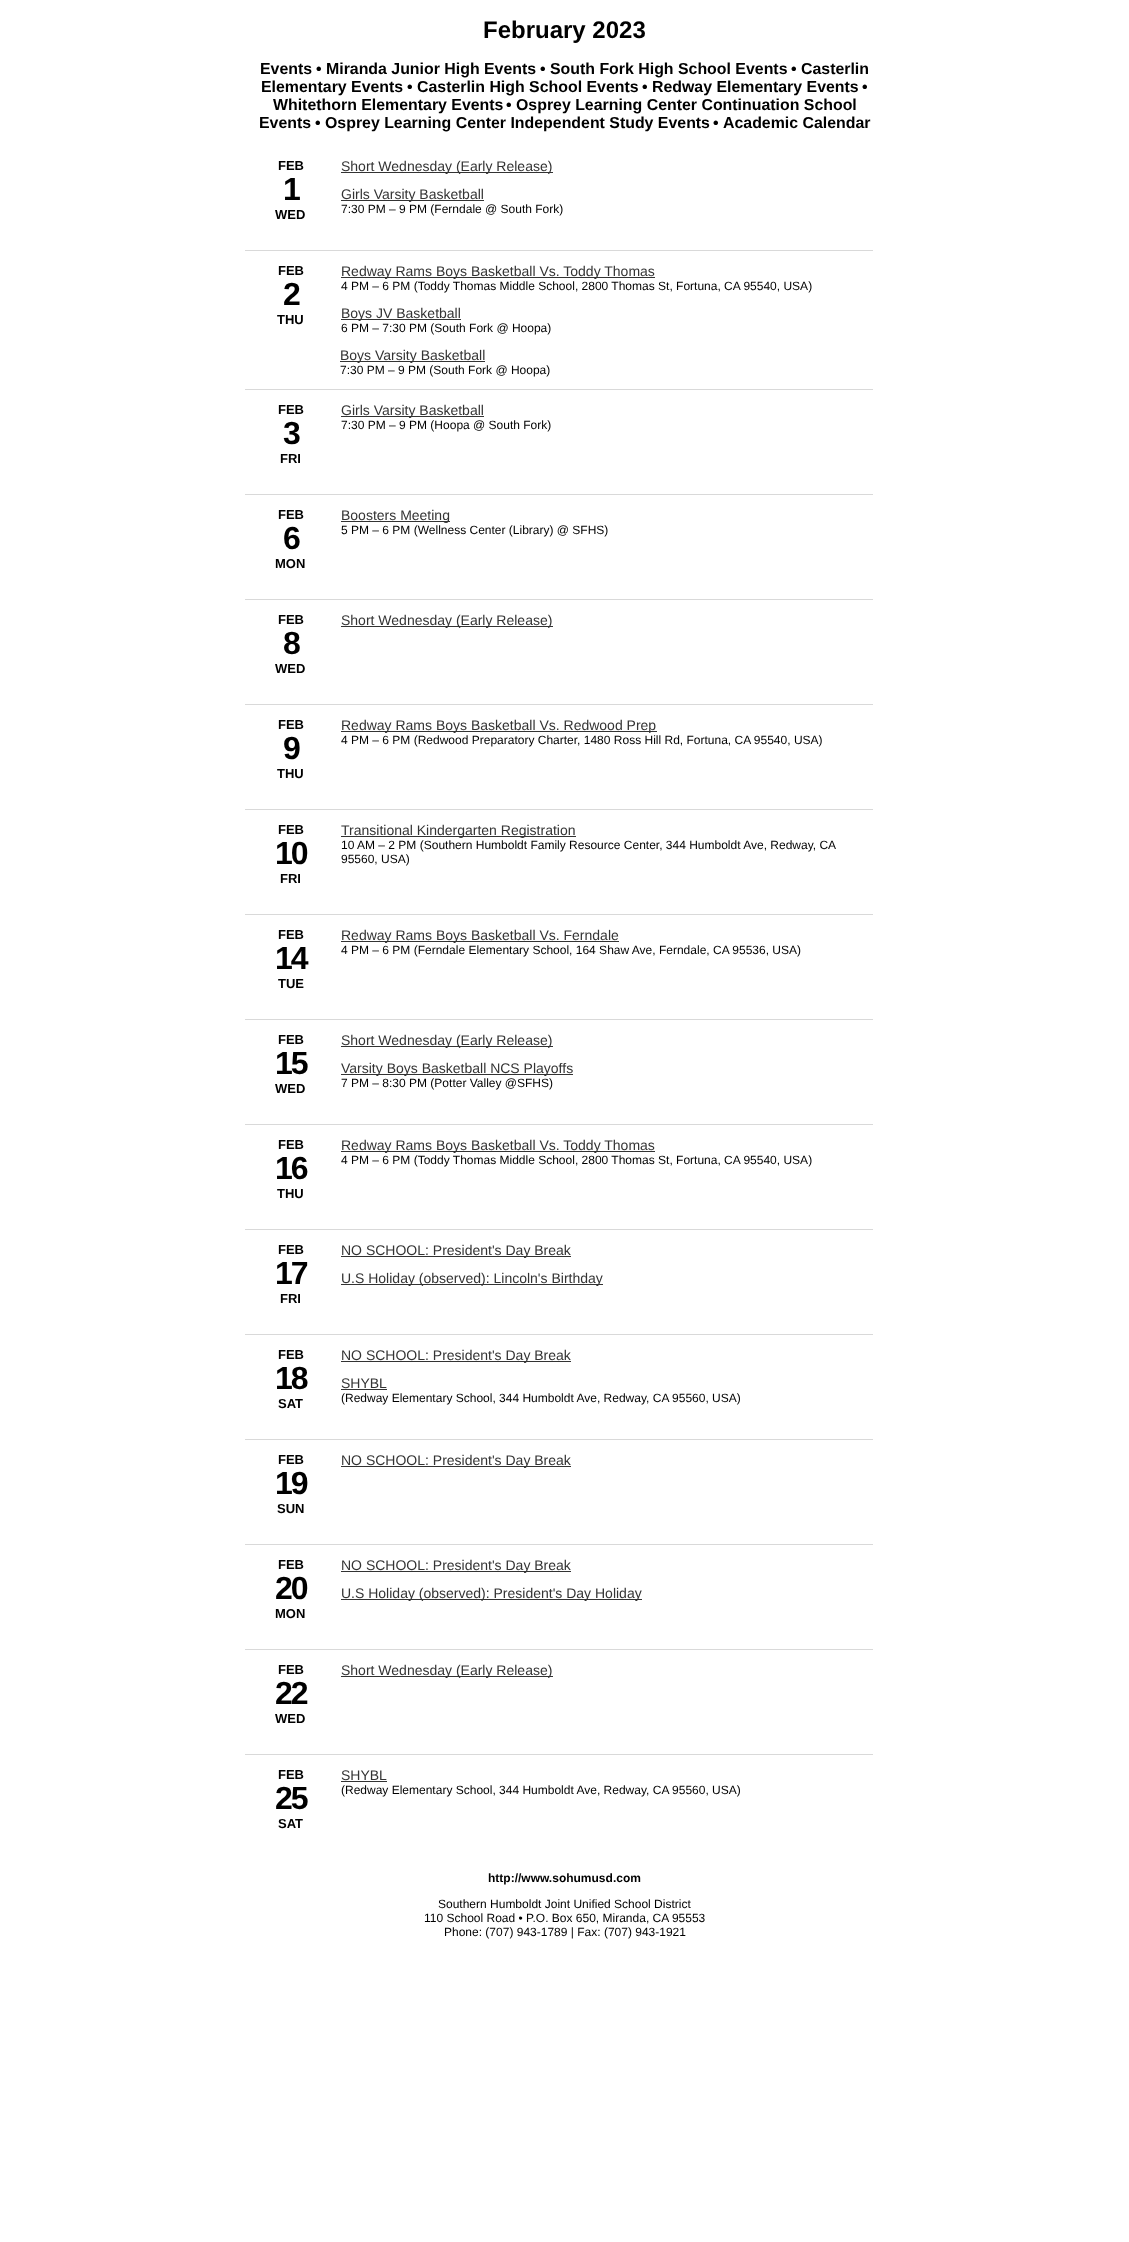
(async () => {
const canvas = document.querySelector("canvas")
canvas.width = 1129
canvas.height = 2242
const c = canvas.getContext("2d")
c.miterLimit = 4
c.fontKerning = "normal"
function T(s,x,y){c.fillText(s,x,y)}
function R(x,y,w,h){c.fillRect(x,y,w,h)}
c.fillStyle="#fff"
R(0,0,1129,2242)
c.font="bold 24px Liberation Sans"
c.fillStyle="#000"
T("February 2023",483,38)
c.font="bold 15.9px Liberation Sans"
T("Events",260,74)
T("• Miranda Junior High Events",316,74)
T("• South Fork High School Events",540,74)
T("• Casterlin",791,74)
T("Elementary Events",261,92)
T("• Casterlin High School Events",407,92)
T("• Redway Elementary Events",642,92)
T("•",862,92)
T("Whitethorn Elementary Events",273,110)
T("• Osprey Learning Center Continuation School",506,110)
T("Events",259,128)
T("• Osprey Learning Center Independent Study Events",315,128)
T("•",713,128)
T("Academic Calendar",723,128)
c.font="bold 13px Liberation Sans"
T("FEB",278,170)
c.letterSpacing="-2px"
c.font="bold 32px Liberation Sans"
T("1",283,200)
c.letterSpacing="0px"
c.font="bold 13px Liberation Sans"
T("WED",275,219)
c.fillStyle="#333"
R(341,172,212,1)
c.font="14px Liberation Sans"
T("Short Wednesday (Early Release)",341,171)
R(341,200,143,1)
T("Girls Varsity Basketball",341,199)
c.font="12px Liberation Sans"
c.fillStyle="#000"
T("7:30 PM – 9 PM (Ferndale @ South Fork)",341,213)
c.fillStyle="#d9d9d9"
R(245,250,628,1)
c.font="bold 13px Liberation Sans"
c.fillStyle="#000"
T("FEB",278,275)
c.letterSpacing="-2px"
c.font="bold 32px Liberation Sans"
T("2",283,305)
c.letterSpacing="0px"
c.font="bold 13px Liberation Sans"
T("THU",277,324)
c.fillStyle="#333"
R(341,277,314,1)
c.font="14px Liberation Sans"
T("Redway Rams Boys Basketball Vs. Toddy Thomas",341,276)
c.font="12px Liberation Sans"
c.fillStyle="#000"
T("4 PM – 6 PM (Toddy Thomas Middle School, 2800 Thomas St, Fortuna, CA 95540, USA)",341,290)
c.fillStyle="#333"
R(341,319,120,1)
c.font="14px Liberation Sans"
T("Boys JV Basketball",341,318)
c.font="12px Liberation Sans"
c.fillStyle="#000"
T("6 PM – 7:30 PM (South Fork @ Hoopa)",341,332)
c.fillStyle="#333"
R(340,361,145,1)
c.font="14px Liberation Sans"
T("Boys Varsity Basketball",340,360)
c.font="12px Liberation Sans"
c.fillStyle="#000"
T("7:30 PM – 9 PM (South Fork @ Hoopa)",340,374)
c.fillStyle="#d9d9d9"
R(245,389,628,1)
c.font="bold 13px Liberation Sans"
c.fillStyle="#000"
T("FEB",278,414)
c.letterSpacing="-2px"
c.font="bold 32px Liberation Sans"
T("3",283,444)
c.letterSpacing="0px"
c.font="bold 13px Liberation Sans"
T("FRI",280,463)
c.fillStyle="#333"
R(341,416,143,1)
c.font="14px Liberation Sans"
T("Girls Varsity Basketball",341,415)
c.font="12px Liberation Sans"
c.fillStyle="#000"
T("7:30 PM – 9 PM (Hoopa @ South Fork)",341,429)
c.fillStyle="#d9d9d9"
R(245,494,628,1)
c.font="bold 13px Liberation Sans"
c.fillStyle="#000"
T("FEB",278,519)
c.letterSpacing="-2px"
c.font="bold 32px Liberation Sans"
T("6",283,549)
c.letterSpacing="0px"
c.font="bold 13px Liberation Sans"
T("MON",275,568)
c.fillStyle="#333"
R(341,521,109,1)
c.font="14px Liberation Sans"
T("Boosters Meeting",341,520)
c.font="12px Liberation Sans"
c.fillStyle="#000"
T("5 PM – 6 PM (Wellness Center (Library) @ SFHS)",341,534)
c.fillStyle="#d9d9d9"
R(245,599,628,1)
c.font="bold 13px Liberation Sans"
c.fillStyle="#000"
T("FEB",278,624)
c.letterSpacing="-2px"
c.font="bold 32px Liberation Sans"
T("8",283,654)
c.letterSpacing="0px"
c.font="bold 13px Liberation Sans"
T("WED",275,673)
c.fillStyle="#333"
R(341,626,212,1)
c.font="14px Liberation Sans"
T("Short Wednesday (Early Release)",341,625)
c.fillStyle="#d9d9d9"
R(245,704,628,1)
c.font="bold 13px Liberation Sans"
c.fillStyle="#000"
T("FEB",278,729)
c.letterSpacing="-2px"
c.font="bold 32px Liberation Sans"
T("9",283,759)
c.letterSpacing="0px"
c.font="bold 13px Liberation Sans"
T("THU",277,778)
c.fillStyle="#333"
R(341,731,316,1)
c.font="14px Liberation Sans"
T("Redway Rams Boys Basketball Vs. Redwood Prep",341,730)
c.font="12px Liberation Sans"
c.fillStyle="#000"
T("4 PM – 6 PM (Redwood Preparatory Charter, 1480 Ross Hill Rd, Fortuna, CA 95540, USA)",341,744)
c.fillStyle="#d9d9d9"
R(245,809,628,1)
c.font="bold 13px Liberation Sans"
c.fillStyle="#000"
T("FEB",278,834)
c.letterSpacing="-2px"
c.font="bold 32px Liberation Sans"
T("10",275,864)
c.letterSpacing="0px"
c.font="bold 13px Liberation Sans"
T("FRI",280,883)
c.fillStyle="#333"
R(341,836,235,1)
c.font="14px Liberation Sans"
T("Transitional Kindergarten Registration",341,835)
c.font="12px Liberation Sans"
c.fillStyle="#000"
T("10 AM – 2 PM (Southern Humboldt Family Resource Center, 344 Humboldt Ave, Redway, CA",341,849)
T("95560, USA)",341,863)
c.fillStyle="#d9d9d9"
R(245,914,628,1)
c.font="bold 13px Liberation Sans"
c.fillStyle="#000"
T("FEB",278,939)
c.letterSpacing="-2px"
c.font="bold 32px Liberation Sans"
T("14",275,969)
c.letterSpacing="0px"
c.font="bold 13px Liberation Sans"
T("TUE",278,988)
c.fillStyle="#333"
R(341,941,278,1)
c.font="14px Liberation Sans"
T("Redway Rams Boys Basketball Vs. Ferndale",341,940)
c.font="12px Liberation Sans"
c.fillStyle="#000"
T("4 PM – 6 PM (Ferndale Elementary School, 164 Shaw Ave, Ferndale, CA 95536, USA)",341,954)
c.fillStyle="#d9d9d9"
R(245,1019,628,1)
c.font="bold 13px Liberation Sans"
c.fillStyle="#000"
T("FEB",278,1044)
c.letterSpacing="-2px"
c.font="bold 32px Liberation Sans"
T("15",275,1074)
c.letterSpacing="0px"
c.font="bold 13px Liberation Sans"
T("WED",275,1093)
c.fillStyle="#333"
R(341,1046,212,1)
c.font="14px Liberation Sans"
T("Short Wednesday (Early Release)",341,1045)
R(341,1074,232,1)
T("Varsity Boys Basketball NCS Playoffs",341,1073)
c.font="12px Liberation Sans"
c.fillStyle="#000"
T("7 PM – 8:30 PM (Potter Valley @SFHS)",341,1087)
c.fillStyle="#d9d9d9"
R(245,1124,628,1)
c.font="bold 13px Liberation Sans"
c.fillStyle="#000"
T("FEB",278,1149)
c.letterSpacing="-2px"
c.font="bold 32px Liberation Sans"
T("16",275,1179)
c.letterSpacing="0px"
c.font="bold 13px Liberation Sans"
T("THU",277,1198)
c.fillStyle="#333"
R(341,1151,314,1)
c.font="14px Liberation Sans"
T("Redway Rams Boys Basketball Vs. Toddy Thomas",341,1150)
c.font="12px Liberation Sans"
c.fillStyle="#000"
T("4 PM – 6 PM (Toddy Thomas Middle School, 2800 Thomas St, Fortuna, CA 95540, USA)",341,1164)
c.fillStyle="#d9d9d9"
R(245,1229,628,1)
c.font="bold 13px Liberation Sans"
c.fillStyle="#000"
T("FEB",278,1254)
c.letterSpacing="-2px"
c.font="bold 32px Liberation Sans"
T("17",275,1284)
c.letterSpacing="0px"
c.font="bold 13px Liberation Sans"
T("FRI",280,1303)
c.fillStyle="#333"
R(341,1256,230,1)
c.font="14px Liberation Sans"
T("NO SCHOOL: President's Day Break",341,1255)
R(341,1284,262,1)
T("U.S Holiday (observed): Lincoln's Birthday",341,1283)
c.fillStyle="#d9d9d9"
R(245,1334,628,1)
c.font="bold 13px Liberation Sans"
c.fillStyle="#000"
T("FEB",278,1359)
c.letterSpacing="-2px"
c.font="bold 32px Liberation Sans"
T("18",275,1389)
c.letterSpacing="0px"
c.font="bold 13px Liberation Sans"
T("SAT",278,1408)
c.fillStyle="#333"
R(341,1361,230,1)
c.font="14px Liberation Sans"
T("NO SCHOOL: President's Day Break",341,1360)
T("SHYBL",341,1388)
R(341,1389,46,1)
c.font="12px Liberation Sans"
c.fillStyle="#000"
T("(Redway Elementary School, 344 Humboldt Ave, Redway, CA 95560, USA)",341,1402)
c.fillStyle="#d9d9d9"
R(245,1439,628,1)
c.font="bold 13px Liberation Sans"
c.fillStyle="#000"
T("FEB",278,1464)
c.letterSpacing="-2px"
c.font="bold 32px Liberation Sans"
T("19",275,1494)
c.letterSpacing="0px"
c.font="bold 13px Liberation Sans"
T("SUN",277,1513)
c.fillStyle="#333"
R(341,1466,230,1)
c.font="14px Liberation Sans"
T("NO SCHOOL: President's Day Break",341,1465)
c.fillStyle="#d9d9d9"
R(245,1544,628,1)
c.font="bold 13px Liberation Sans"
c.fillStyle="#000"
T("FEB",278,1569)
c.letterSpacing="-2px"
c.font="bold 32px Liberation Sans"
T("20",275,1599)
c.letterSpacing="0px"
c.font="bold 13px Liberation Sans"
T("MON",275,1618)
c.fillStyle="#333"
R(341,1571,230,1)
c.font="14px Liberation Sans"
T("NO SCHOOL: President's Day Break",341,1570)
R(341,1599,301,1)
T("U.S Holiday (observed): President's Day Holiday",341,1598)
c.fillStyle="#d9d9d9"
R(245,1649,628,1)
c.font="bold 13px Liberation Sans"
c.fillStyle="#000"
T("FEB",278,1674)
c.letterSpacing="-2px"
c.font="bold 32px Liberation Sans"
T("22",275,1704)
c.letterSpacing="0px"
c.font="bold 13px Liberation Sans"
T("WED",275,1723)
c.fillStyle="#333"
R(341,1676,212,1)
c.font="14px Liberation Sans"
T("Short Wednesday (Early Release)",341,1675)
c.fillStyle="#d9d9d9"
R(245,1754,628,1)
c.font="bold 13px Liberation Sans"
c.fillStyle="#000"
T("FEB",278,1779)
c.letterSpacing="-2px"
c.font="bold 32px Liberation Sans"
T("25",275,1809)
c.letterSpacing="0px"
c.font="bold 13px Liberation Sans"
T("SAT",278,1828)
c.font="14px Liberation Sans"
c.fillStyle="#333"
T("SHYBL",341,1780)
R(341,1781,46,1)
c.font="12px Liberation Sans"
c.fillStyle="#000"
T("(Redway Elementary School, 344 Humboldt Ave, Redway, CA 95560, USA)",341,1794)
c.font="bold 12px Liberation Sans"
T("http://www.sohumusd.com",488,1882)
c.font="12px Liberation Sans"
T("Southern Humboldt Joint Unified School District",438,1908)
T("110 School Road • P.O. Box 650, Miranda, CA 95553",424,1922)
T("Phone: (707) 943-1789 | Fax: (707) 943-1921",444,1936)
})()
